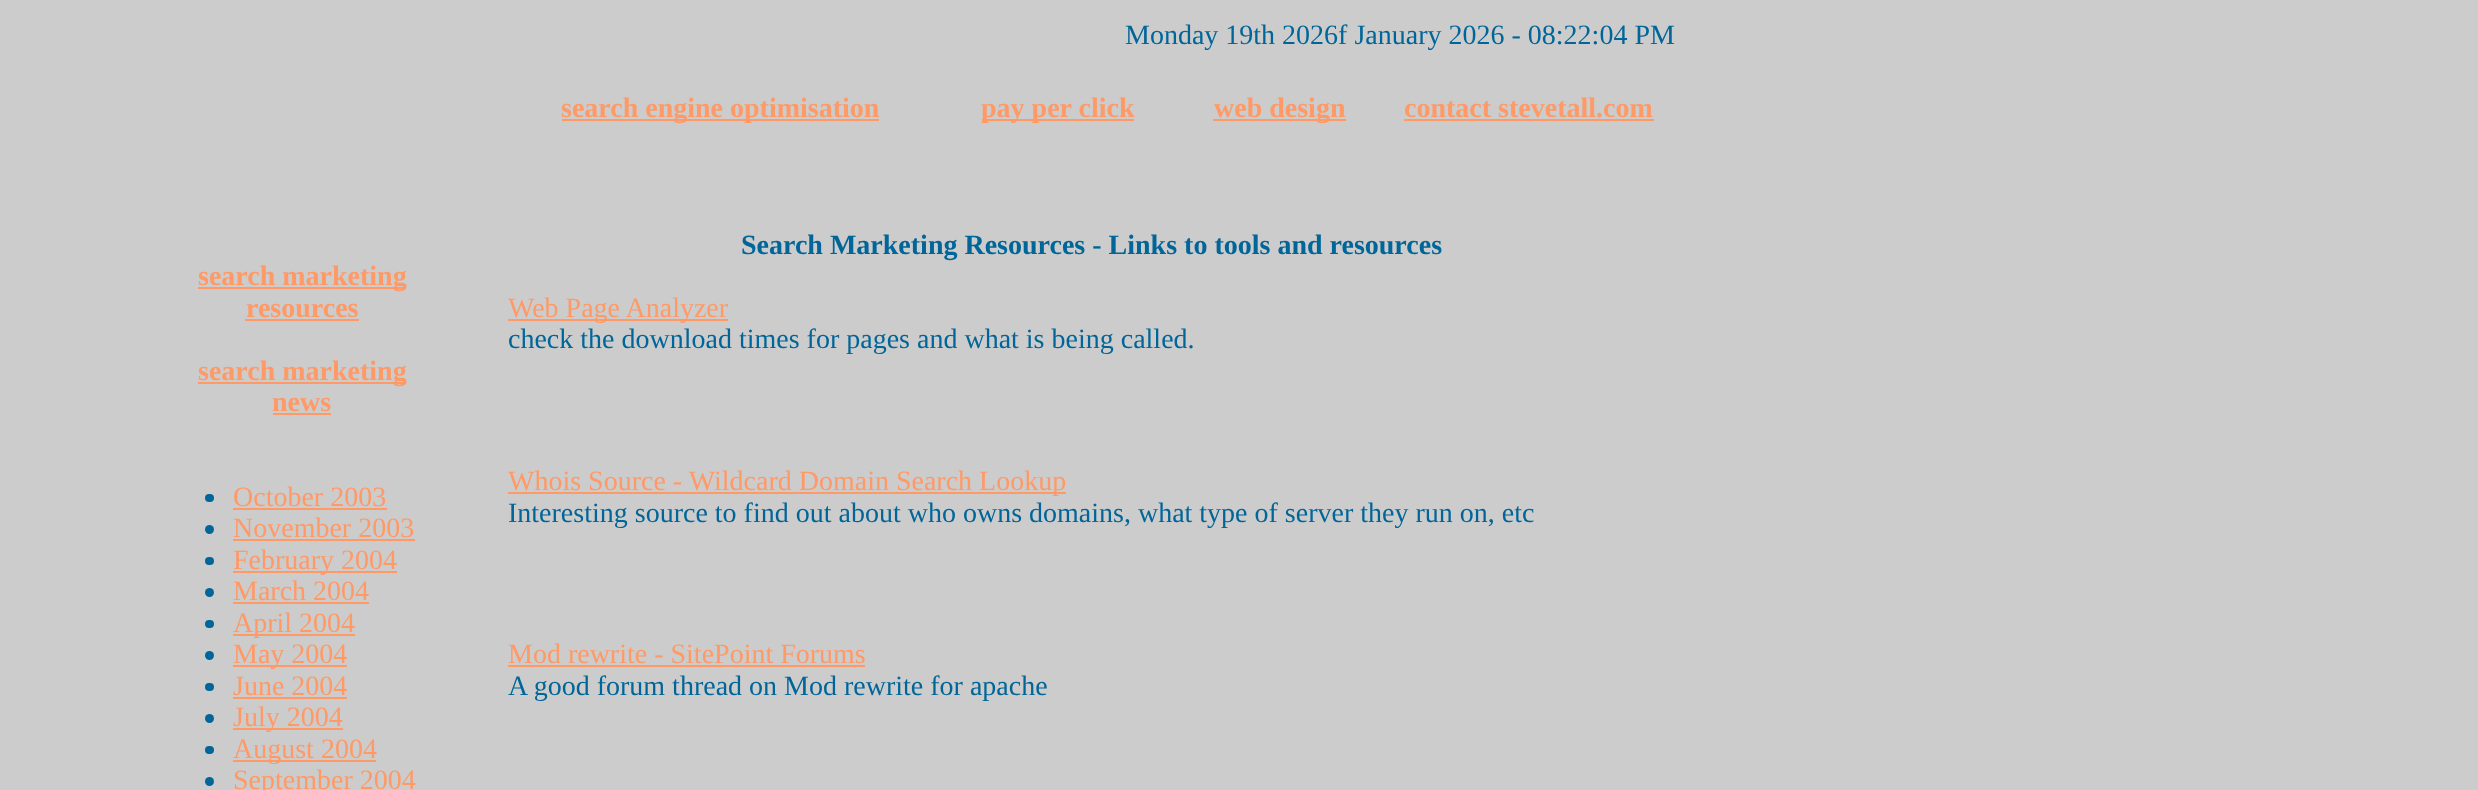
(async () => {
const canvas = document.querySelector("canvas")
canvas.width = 2478
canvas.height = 790
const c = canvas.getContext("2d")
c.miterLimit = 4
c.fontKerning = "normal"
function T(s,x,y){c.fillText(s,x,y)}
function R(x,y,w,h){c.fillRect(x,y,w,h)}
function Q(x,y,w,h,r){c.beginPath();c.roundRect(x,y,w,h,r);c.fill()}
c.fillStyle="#ccc"
R(0,0,2478,790)
c.font="28px Liberation Serif"
c.fillStyle="#069"
T("Monday 19th 2026f January 2026 - 08:22:04 PM",1125,44)
c.fillStyle="#f96"
R(562,119,317,2)
c.font="bold 28px Liberation Serif"
T("search engine optimisation",561,117)
R(982,119,152,2)
T("pay per click",981,117)
R(1213,119,133,2)
T("web design",1214,117)
T("contact stevetall.com",1404,117)
R(1404,119,250,2)
R(198,287,208,2)
T("search marketing",198,285)
T("resources",246,317)
R(245,319,114,2)
R(198,382,208,2)
T("search marketing",198,380)
T("news",272,411)
R(273,413,58,2)
c.fillStyle="#069"
Q(205,494,9,8,4)
c.font="28px Liberation Serif"
c.fillStyle="#f96"
T("October 2003",233,506)
R(233,508,154,2)
c.fillStyle="#069"
c.beginPath()
c.arc(209.5,529.5,4.5,0,7)
c.fill()
c.fillStyle="#f96"
T("November 2003",233,537)
R(233,539,182,2)
c.fillStyle="#069"
Q(205,557,9,8,4)
c.fillStyle="#f96"
R(233,571,164,2)
T("February 2004",233,569)
c.fillStyle="#069"
c.beginPath()
c.arc(209.5,592.5,4.5,0,7)
c.fill()
c.fillStyle="#f96"
T("March 2004",233,600)
R(233,602,136,2)
c.fillStyle="#069"
Q(205,620,9,8,4)
c.fillStyle="#f96"
R(233,634,122,2)
T("April 2004",233,632)
c.fillStyle="#069"
c.beginPath()
c.arc(209.5,655.5,4.5,0,7)
c.fill()
c.fillStyle="#f96"
R(233,665,114,2)
T("May 2004",233,663)
c.fillStyle="#069"
Q(205,683,9,8,4)
c.fillStyle="#f96"
T("June 2004",233,695)
R(233,697,114,2)
c.fillStyle="#069"
c.beginPath()
c.arc(209.5,718.5,4.5,0,7)
c.fill()
c.fillStyle="#f96"
R(233,728,110,2)
T("July 2004",233,726)
c.fillStyle="#069"
Q(205,746,9,8,4)
c.fillStyle="#f96"
R(233,760,143,2)
T("August 2004",233,758)
c.fillStyle="#069"
c.beginPath()
c.arc(209.5,781.5,4.5,0,7)
c.fill()
c.fillStyle="#f96"
T("September 2004",233,789)
c.font="bold 28px Liberation Serif"
c.fillStyle="#069"
T("Search Marketing Resources - Links to tools and resources",741,254)
c.fillStyle="#f96"
R(508,319,220,2)
c.font="28px Liberation Serif"
T("Web Page Analyzer",508,317)
c.fillStyle="#069"
T("check the download times for pages and what is being called.",508,348)
c.fillStyle="#f96"
R(508,492,558,2)
T("Whois Source - Wildcard Domain Search Lookup",508,490)
c.fillStyle="#069"
T("Interesting source to find out about who owns domains, what type of server they run on, etc",508,522)
c.fillStyle="#f96"
T("Mod rewrite - SitePoint Forums",508,663)
R(508,665,357,2)
c.fillStyle="#069"
T("A good forum thread on Mod rewrite for apache",508,695)
})()
